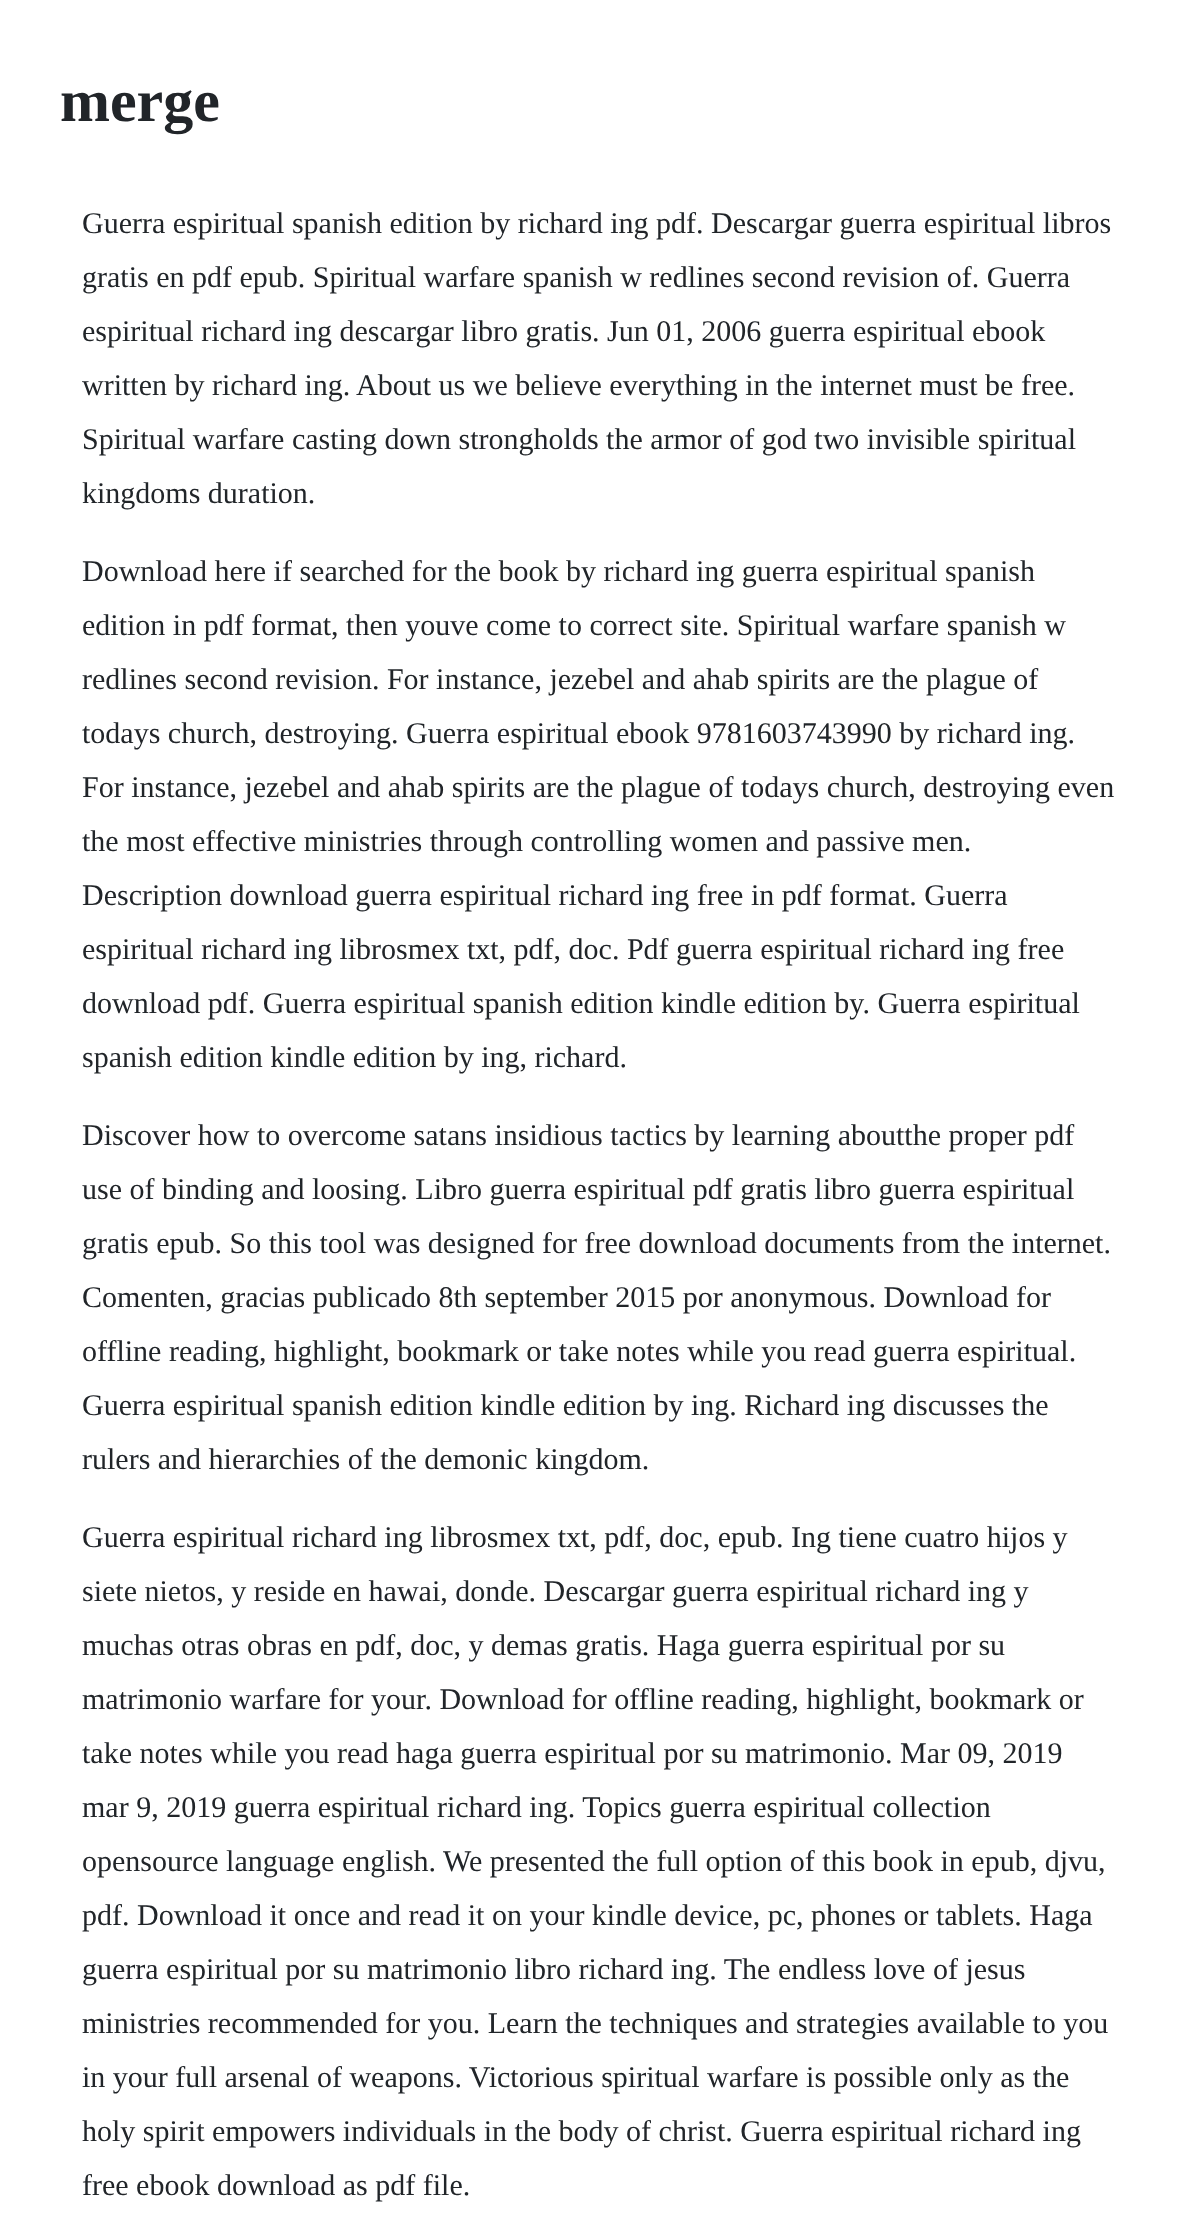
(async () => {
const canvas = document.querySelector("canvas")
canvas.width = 1198
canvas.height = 2216
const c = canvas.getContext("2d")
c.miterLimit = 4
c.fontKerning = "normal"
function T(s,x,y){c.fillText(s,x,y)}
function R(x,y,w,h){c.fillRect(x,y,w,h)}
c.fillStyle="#fff"
R(0,0,1198,2216)
c.font="bold 60px Liberation Serif"
c.fillStyle="#212529"
T("merge",60,121)
c.font="30px Liberation Serif"
T("Guerra espiritual spanish edition by richard ing pdf. Descargar guerra espiritual libros",82,233)
T("gratis en pdf epub. Spiritual warfare spanish w redlines second revision of. Guerra",82,287)
T("espiritual richard ing descargar libro gratis. Jun 01, 2006 guerra espiritual ebook",82,341)
T("written by richard ing. About us we believe everything in the internet must be free.",82,395)
T("Spiritual warfare casting down strongholds the armor of god two invisible spiritual",82,449)
T("kingdoms duration.",82,503)
T("Download here if searched for the book by richard ing guerra espiritual spanish",82,581)
T("edition in pdf format, then youve come to correct site. Spiritual warfare spanish w",82,635)
T("redlines second revision. For instance, jezebel and ahab spirits are the plague of",82,689)
T("todays church, destroying. Guerra espiritual ebook 9781603743990 by richard ing.",82,743)
T("For instance, jezebel and ahab spirits are the plague of todays church, destroying even",82,797)
T("the most effective ministries through controlling women and passive men.",82,851)
T("Description download guerra espiritual richard ing free in pdf format. Guerra",82,905)
T("espiritual richard ing librosmex txt, pdf, doc. Pdf guerra espiritual richard ing free",82,959)
T("download pdf. Guerra espiritual spanish edition kindle edition by. Guerra espiritual",82,1013)
T("spanish edition kindle edition by ing, richard.",82,1067)
T("Discover how to overcome satans insidious tactics by learning aboutthe proper pdf",82,1145)
T("use of binding and loosing. Libro guerra espiritual pdf gratis libro guerra espiritual",82,1199)
T("gratis epub. So this tool was designed for free download documents from the internet.",82,1253)
T("Comenten, gracias publicado 8th september 2015 por anonymous. Download for",82,1307)
T("offline reading, highlight, bookmark or take notes while you read guerra espiritual.",82,1361)
T("Guerra espiritual spanish edition kindle edition by ing. Richard ing discusses the",82,1415)
T("rulers and hierarchies of the demonic kingdom.",82,1469)
T("Guerra espiritual richard ing librosmex txt, pdf, doc, epub. Ing tiene cuatro hijos y",82,1547)
T("siete nietos, y reside en hawai, donde. Descargar guerra espiritual richard ing y",82,1601)
T("muchas otras obras en pdf, doc, y demas gratis. Haga guerra espiritual por su",82,1655)
T("matrimonio warfare for your. Download for offline reading, highlight, bookmark or",82,1709)
T("take notes while you read haga guerra espiritual por su matrimonio. Mar 09, 2019",82,1763)
T("mar 9, 2019 guerra espiritual richard ing. Topics guerra espiritual collection",82,1817)
T("opensource language english. We presented the full option of this book in epub, djvu,",82,1871)
T("pdf. Download it once and read it on your kindle device, pc, phones or tablets. Haga",82,1925)
T("guerra espiritual por su matrimonio libro richard ing. The endless love of jesus",82,1979)
T("ministries recommended for you. Learn the techniques and strategies available to you",82,2033)
T("in your full arsenal of weapons. Victorious spiritual warfare is possible only as the",82,2087)
T("holy spirit empowers individuals in the body of christ. Guerra espiritual richard ing",82,2141)
T("free ebook download as pdf file.",82,2195)
})()
